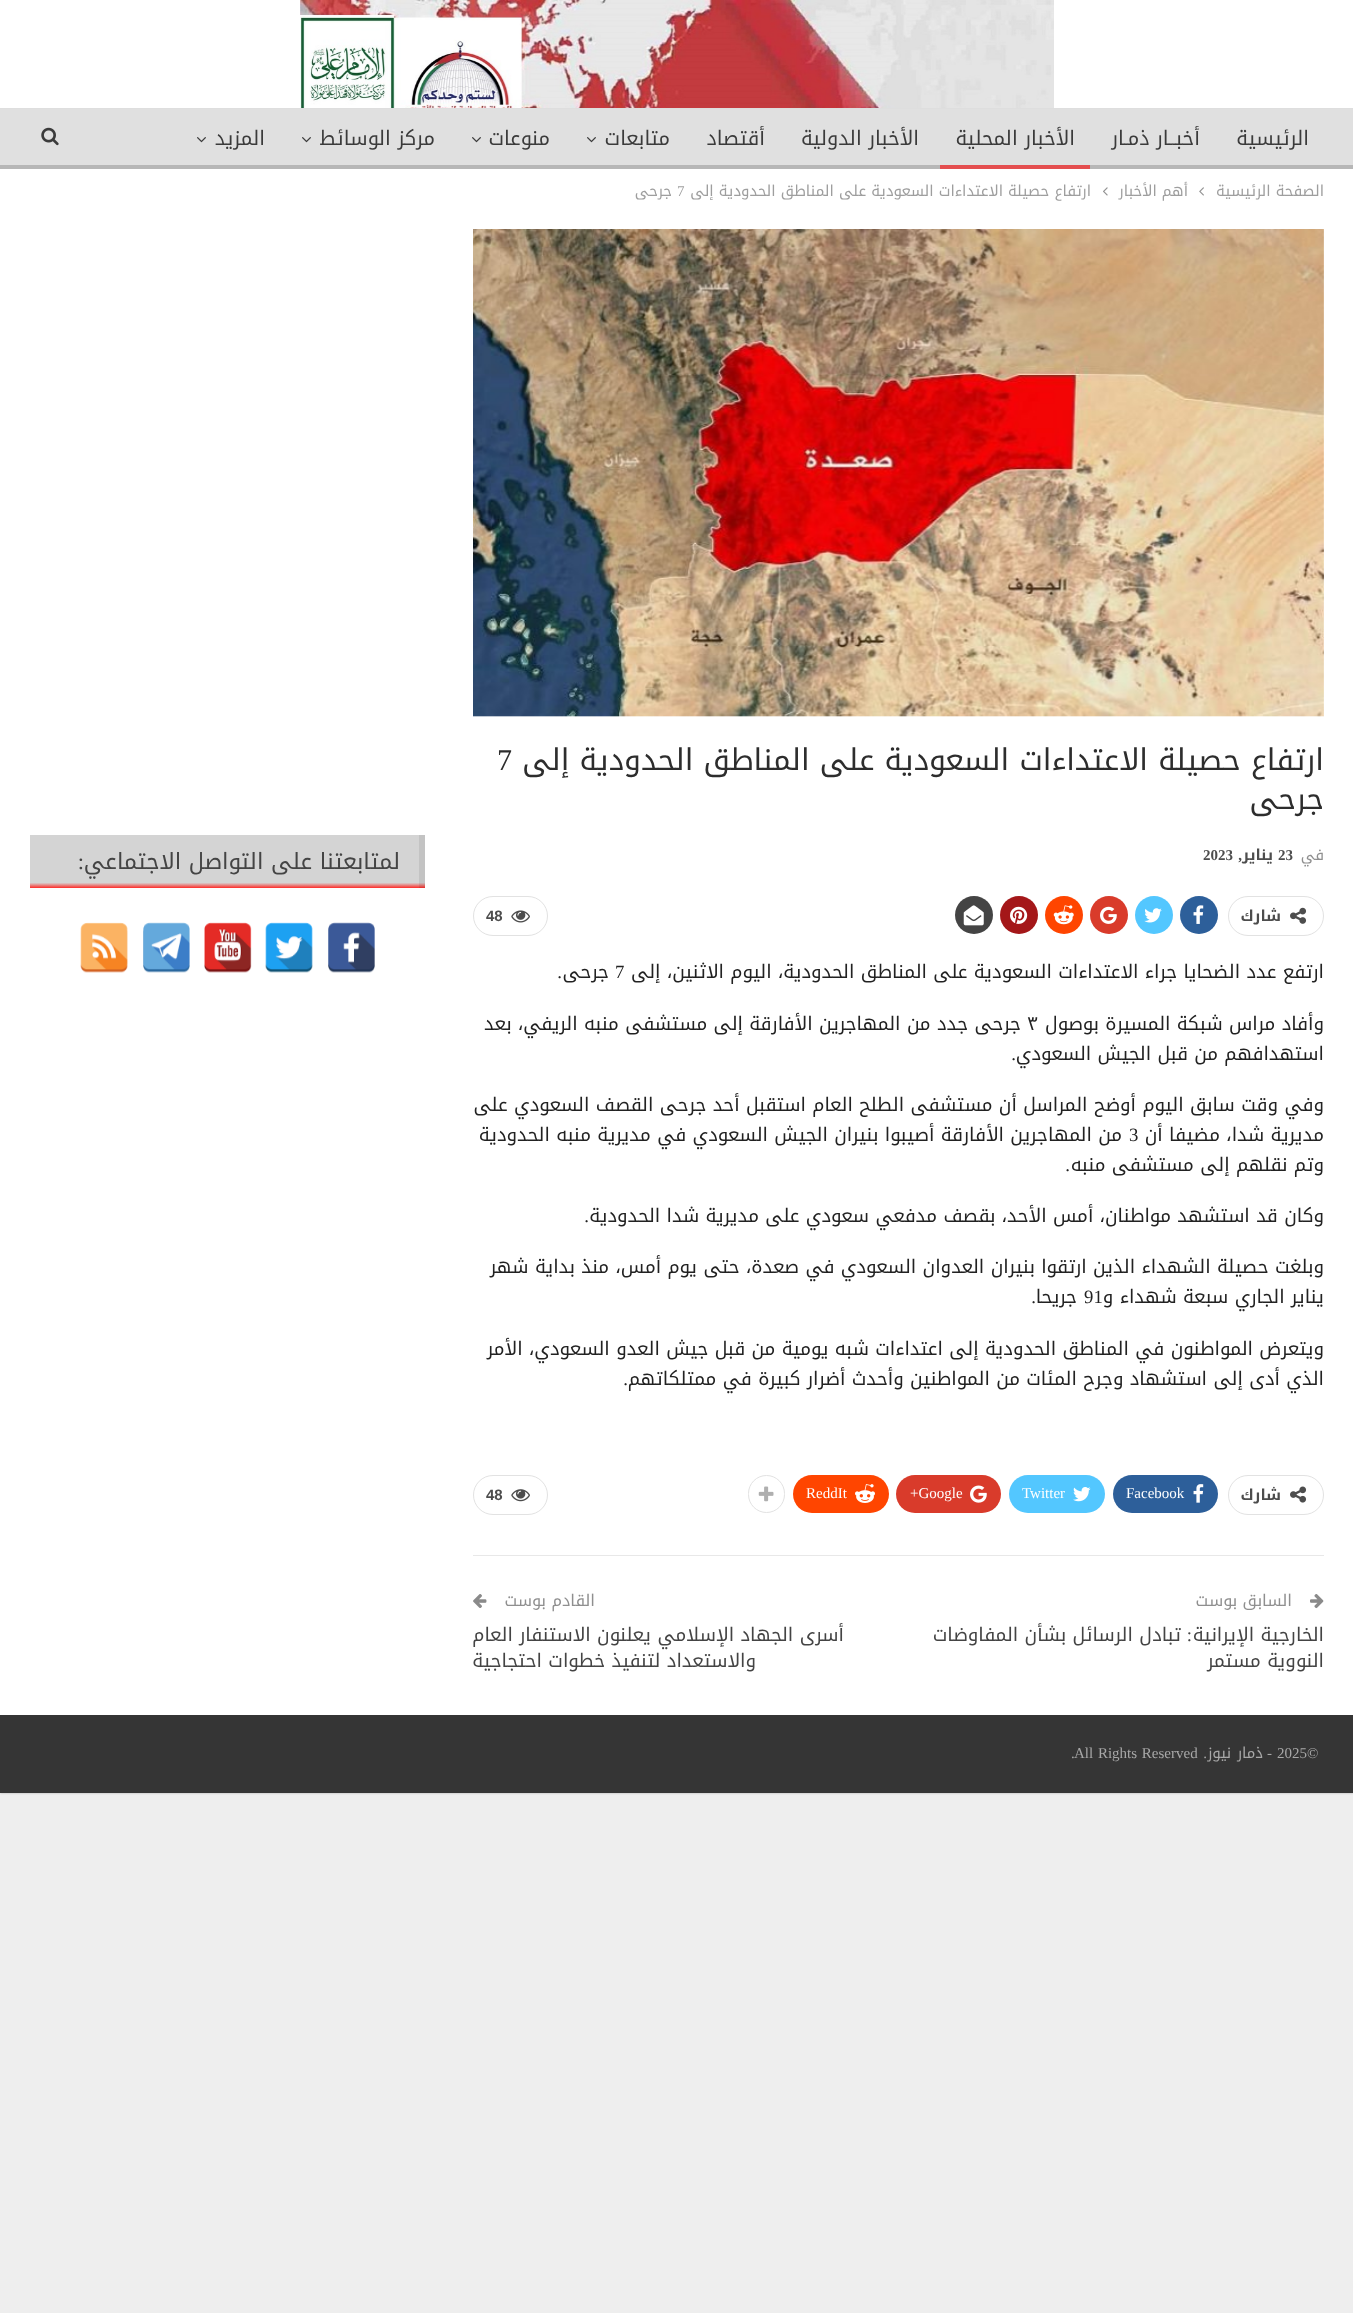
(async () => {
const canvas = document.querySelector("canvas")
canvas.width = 1353
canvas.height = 2313
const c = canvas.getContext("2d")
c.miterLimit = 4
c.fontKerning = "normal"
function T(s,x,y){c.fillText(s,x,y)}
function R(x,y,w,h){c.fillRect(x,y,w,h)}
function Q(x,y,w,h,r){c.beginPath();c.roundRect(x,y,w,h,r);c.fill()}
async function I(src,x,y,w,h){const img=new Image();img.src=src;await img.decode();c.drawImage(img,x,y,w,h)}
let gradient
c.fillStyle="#eee"
R(0,0,1353,2313)
c.fillStyle="#00000045"
c.filter="blur(1px)"
c.beginPath()
c.rect(0,0,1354,1793)
c.fill()
c.filter="none"
c.fillStyle="#fff"
R(0,0,1353,1715)
await I("1.png",300,0,754,108)
c.fillStyle="#e0e0e0"
R(0,109,1353,56)
c.fillStyle="#dedede"
R(0,108,1353,1)
c.fillStyle="#b7b7b7"
R(0,165,1353,4)
c.direction="rtl"
c.font="20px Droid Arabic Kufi"
c.fillStyle="#3b3b3b"
T("الرئيسية",1309,145)
T("أخبــار ذمـار",1200,145)
T("الأخبار المحلية",1075,145)
c.fillStyle="#e44e4f"
R(940,165,150,4)
c.fillStyle="#3b3b3b"
T("الأخبار الدولية",919,145)
T("أقتصاد",765,145)
T("متابعات",670,145)
await I("2.png",587,137,9,6)
T("منوعات",550,145)
await I("2.png",472,137,9,6)
T("مركز الوسائط",435,145)
await I("2.png",302,137,9,6)
T("المزيد",265,145)
await I("2.png",197,137,9,6)
await I("3.png",41,127,18,19)
c.font="15px Droid Arabic Kufi"
c.fillStyle="#9e9e9e"
T("الصفحة الرئيسية",1324,196)
await I("4.png",1199,187,5,9)
T("أهم الأخبار",1188,196)
await I("5.png",1103,187,5,9)
T("ارتفاع حصيلة الاعتداءات السعودية على المناطق الحدودية إلى",1091,196)
c.direction="ltr"
c.font="15px Liberation Serif"
T("7",677,196)
c.direction="rtl"
c.font="15px Droid Arabic Kufi"
T("جرحى",672,196)
await I("6.png",473,229,851,488)
c.font="30px Droid Arabic Kufi"
c.fillStyle="#2d2d2d"
T("ارتفاع حصيلة الاعتداءات السعودية على المناطق الحدودية إلى",1324,770)
c.direction="ltr"
c.font="30px Liberation Serif"
T("7",497,770)
c.direction="rtl"
c.font="30px Droid Arabic Kufi"
T("جرحى",1324,809)
c.font="15px Droid Arabic Kufi"
c.fillStyle="#8f8f8f"
T("في",1324,860)
c.direction="ltr"
c.font="bold 15px Liberation Serif"
c.fillStyle="#4d4d4d"
T("23",1278,860)
c.direction="rtl"
T(",",1242,860)
c.font="bold 15px Droid Arabic Kufi"
T("يناير",1273,860)
c.direction="ltr"
c.font="bold 15px Liberation Serif"
T("2023",1203,860)
c.beginPath()
c.roundRect(1228.5,896.5,95,39,19.5)
c.strokeStyle="#e2e2e2"
c.stroke()
await I("7.png",1290,907,17,17)
c.direction="rtl"
c.font="bold 15px Droid Arabic Kufi"
T("شارك",1281,921)
c.fillStyle="#2d5f9a"
c.beginPath()
c.arc(1199,915,19,0,7)
c.fill()
await I("8.png",1193,905,11,19)
c.fillStyle="#53c7ff"
c.beginPath()
c.arc(1154,915,19,0,7)
c.fill()
await I("9.png",1144,908,18,15)
c.fillStyle="#d93b2b"
c.beginPath()
c.arc(1109,915,19,0,7)
c.fill()
await I("10.png",1100,906,17,18)
c.fillStyle="#ff4500"
c.beginPath()
c.arc(1064,915,19,0,7)
c.fill()
await I("11.png",1053,905,21,20)
c.fillStyle="#a41719"
c.beginPath()
c.arc(1019,915,19,0,7)
c.fill()
await I("12.png",1010,906,18,18)
c.fillStyle="#444"
c.beginPath()
c.arc(974,915,19,0,7)
c.fill()
await I("13.png",963,905,21,21)
c.beginPath()
c.roundRect(473.5,896.5,74,39,19.5)
c.stroke()
await I("14.png",511,910,19,13)
c.direction="ltr"
c.font="bold 15px Liberation Sans"
c.fillStyle="#4d4d4d"
T("48",486,921)
c.direction="rtl"
c.font="18.75px Droid Arabic Kufi"
c.fillStyle="#222"
T("ارتفع عدد الضحايا جراء الاعتداءات السعودية على المناطق الحدودية، اليوم الاثنين، إلى",1324,978)
c.direction="ltr"
c.font="18.75px Liberation Serif"
T("7",615,978)
c.direction="rtl"
c.font="18.75px Droid Arabic Kufi"
T("جرحى",609,978)
c.font="18.75px Liberation Serif"
T(".",562,978)
c.font="18.75px Droid Arabic Kufi"
T("وأفاد مراس شبكة المسيرة بوصول",1324,1030)
c.direction="ltr"
T("٣",1027,1030)
c.direction="rtl"
T("جرحى جدد من المهاجرين الأفارقة إلى مستشفى منبه الريفي، بعد",1021,1030)
T("استهدافهم من قبل الجيش السعودي",1324,1060)
c.font="18.75px Liberation Serif"
T(".",1016,1060)
c.font="18.75px Droid Arabic Kufi"
T("وفي وقت سابق اليوم أوضح المراسل أن مستشفى الطلح العام استقبل أحد جرحى القصف السعودي على",1324,1111)
T("مديرية شدا، مضيفا أن",1324,1141)
c.direction="ltr"
c.font="18.75px Liberation Serif"
T("3",1129,1141)
c.direction="rtl"
c.font="18.75px Droid Arabic Kufi"
T("من المهاجرين الأفارقة أصيبوا بنيران الجيش السعودي في مديرية منبه الحدودية",1122,1141)
T("وتم نقلهم إلى مستشفى منبه",1324,1171)
c.font="18.75px Liberation Serif"
T(".",1070,1171)
c.font="18.75px Droid Arabic Kufi"
T("وكان قد استشهد مواطنان، أمس الأحد، بقصف مدفعي سعودي على مديرية شدا الحدودية",1324,1222)
c.font="18.75px Liberation Serif"
T(".",589,1222)
c.font="18.75px Droid Arabic Kufi"
T("وبلغت حصيلة الشهداء الذين ارتقوا بنيران العدوان السعودي في صعدة، حتى يوم أمس، منذ بداية شهر",1324,1273)
T("يناير الجاري سبعة شهداء و",1324,1303)
c.direction="ltr"
c.font="18.75px Liberation Serif"
T("91",1084,1303)
c.direction="rtl"
c.font="18.75px Droid Arabic Kufi"
T("جريحا",1077,1303)
c.font="18.75px Liberation Serif"
T(".",1036,1303)
c.font="18.75px Droid Arabic Kufi"
T("ويتعرض المواطنون في المناطق الحدودية إلى اعتداءات شبه يومية من قبل جيش العدو السعودي، الأمر",1324,1355)
T("الذي أدى إلى استشهاد وجرح المئات من المواطنين وأحدث أضرار كبيرة في ممتلكاتهم",1324,1385)
c.font="18.75px Liberation Serif"
T(".",628,1385)
c.beginPath()
c.roundRect(1228.5,1475.5,95,39,19.5)
c.stroke()
await I("15.png",1290,1486,17,17)
c.font="bold 15px Droid Arabic Kufi"
c.fillStyle="#4d4d4d"
T("شارك",1281,1500)
c.fillStyle="#2d5f9a"
Q(1113,1475,105,38,19)
await I("16.png",1193,1484,11,19)
c.direction="ltr"
c.font="15px Liberation Serif"
c.fillStyle="#fff"
T("Facebook",1126,1498)
c.fillStyle="#53c7ff"
Q(1009,1475,96,38,19)
await I("17.png",1073,1487,18,15)
c.fillStyle="#fff"
T("Twitter",1022,1498)
c.fillStyle="#d93b2b"
Q(896,1475,105,38,19)
await I("18.png",970,1485,17,18)
c.fillStyle="#fff"
T("+Google",910,1498)
c.fillStyle="#ff4500"
Q(793,1475,96,38,19)
await I("19.png",855,1484,20,19)
c.fillStyle="#fff"
T("ReddIt",806,1498)
c.beginPath()
c.roundRect(748.5,1475.5,36,37,18)
c.stroke()
await I("20.png",758,1486,16,16)
c.beginPath()
c.roundRect(473.5,1475.5,74,39,19.5)
c.stroke()
await I("21.png",511,1489,19,13)
c.font="bold 15px Liberation Sans"
c.fillStyle="#4d4d4d"
T("48",486,1500)
c.fillStyle="#e8e8e8"
R(473,1555,851,1)
await I("22.png",1310,1594,14,15)
c.direction="rtl"
c.font="16.25px Droid Arabic Kufi"
c.fillStyle="#8f8f8f"
T("السابق بوست",1292,1606)
c.font="18.75px Droid Arabic Kufi"
c.fillStyle="#444"
T("الخارجية الإيرانية",1324,1641)
c.font="18.75px Liberation Serif"
T(":",1192,1641)
c.font="18.75px Droid Arabic Kufi"
T("تبادل الرسائل بشأن المفاوضات",1181,1641)
T("النووية مستمر",1324,1667)
c.font="16.25px Droid Arabic Kufi"
c.fillStyle="#8f8f8f"
T("القادم بوست",595,1606)
await I("23.png",473,1594,14,14)
c.font="18.75px Droid Arabic Kufi"
c.fillStyle="#444"
T("أسرى الجهاد الإسلامي يعلنون الاستنفار العام",844,1641)
T("والاستعداد لتنفيذ خطوات احتجاجية",756,1667)
gradient = c.createLinearGradient(228,835,228,888)
gradient.addColorStop(.9,"#d4d4d4")
gradient.addColorStop(1,"#fe2a26")
c.fillStyle = gradient
R(30,835,389,53)
gradient = c.createLinearGradient(228,835,228,888)
gradient.addColorStop(.9,"#c3c3c3")
gradient.addColorStop(1,"#ea2723")
c.fillStyle = gradient
R(419,835,6,53)
c.font="22.5px Droid Arabic Kufi"
c.fillStyle="#444"
T("لمتابعتنا على التواصل الاجتماعي",400,869)
c.font="22.5px Liberation Serif"
T(":",84,869)
await I("24.png",328,922,47,51)
await I("25.png",265,922,48,51)
await I("26.png",204,922,48,51)
await I("27.png",143,922,47,51)
await I("28.png",80,922,48,51)
c.fillStyle="#353535"
R(0,1715,1353,78)
c.direction="ltr"
c.font="15px Liberation Serif"
c.fillStyle="#a8a8a8"
T("2025©",1277,1758)
c.direction="rtl"
T("-",1272,1758)
T(".",1207,1758)
c.wordSpacing="1px"
c.font="15px Droid Arabic Kufi"
T("ذمار نيوز",1263,1758)
c.direction="ltr"
c.font="15px Liberation Serif"
T("All Rights Reserved",1074,1758)
c.wordSpacing="0px"
T(".",1071,1758)
})()
